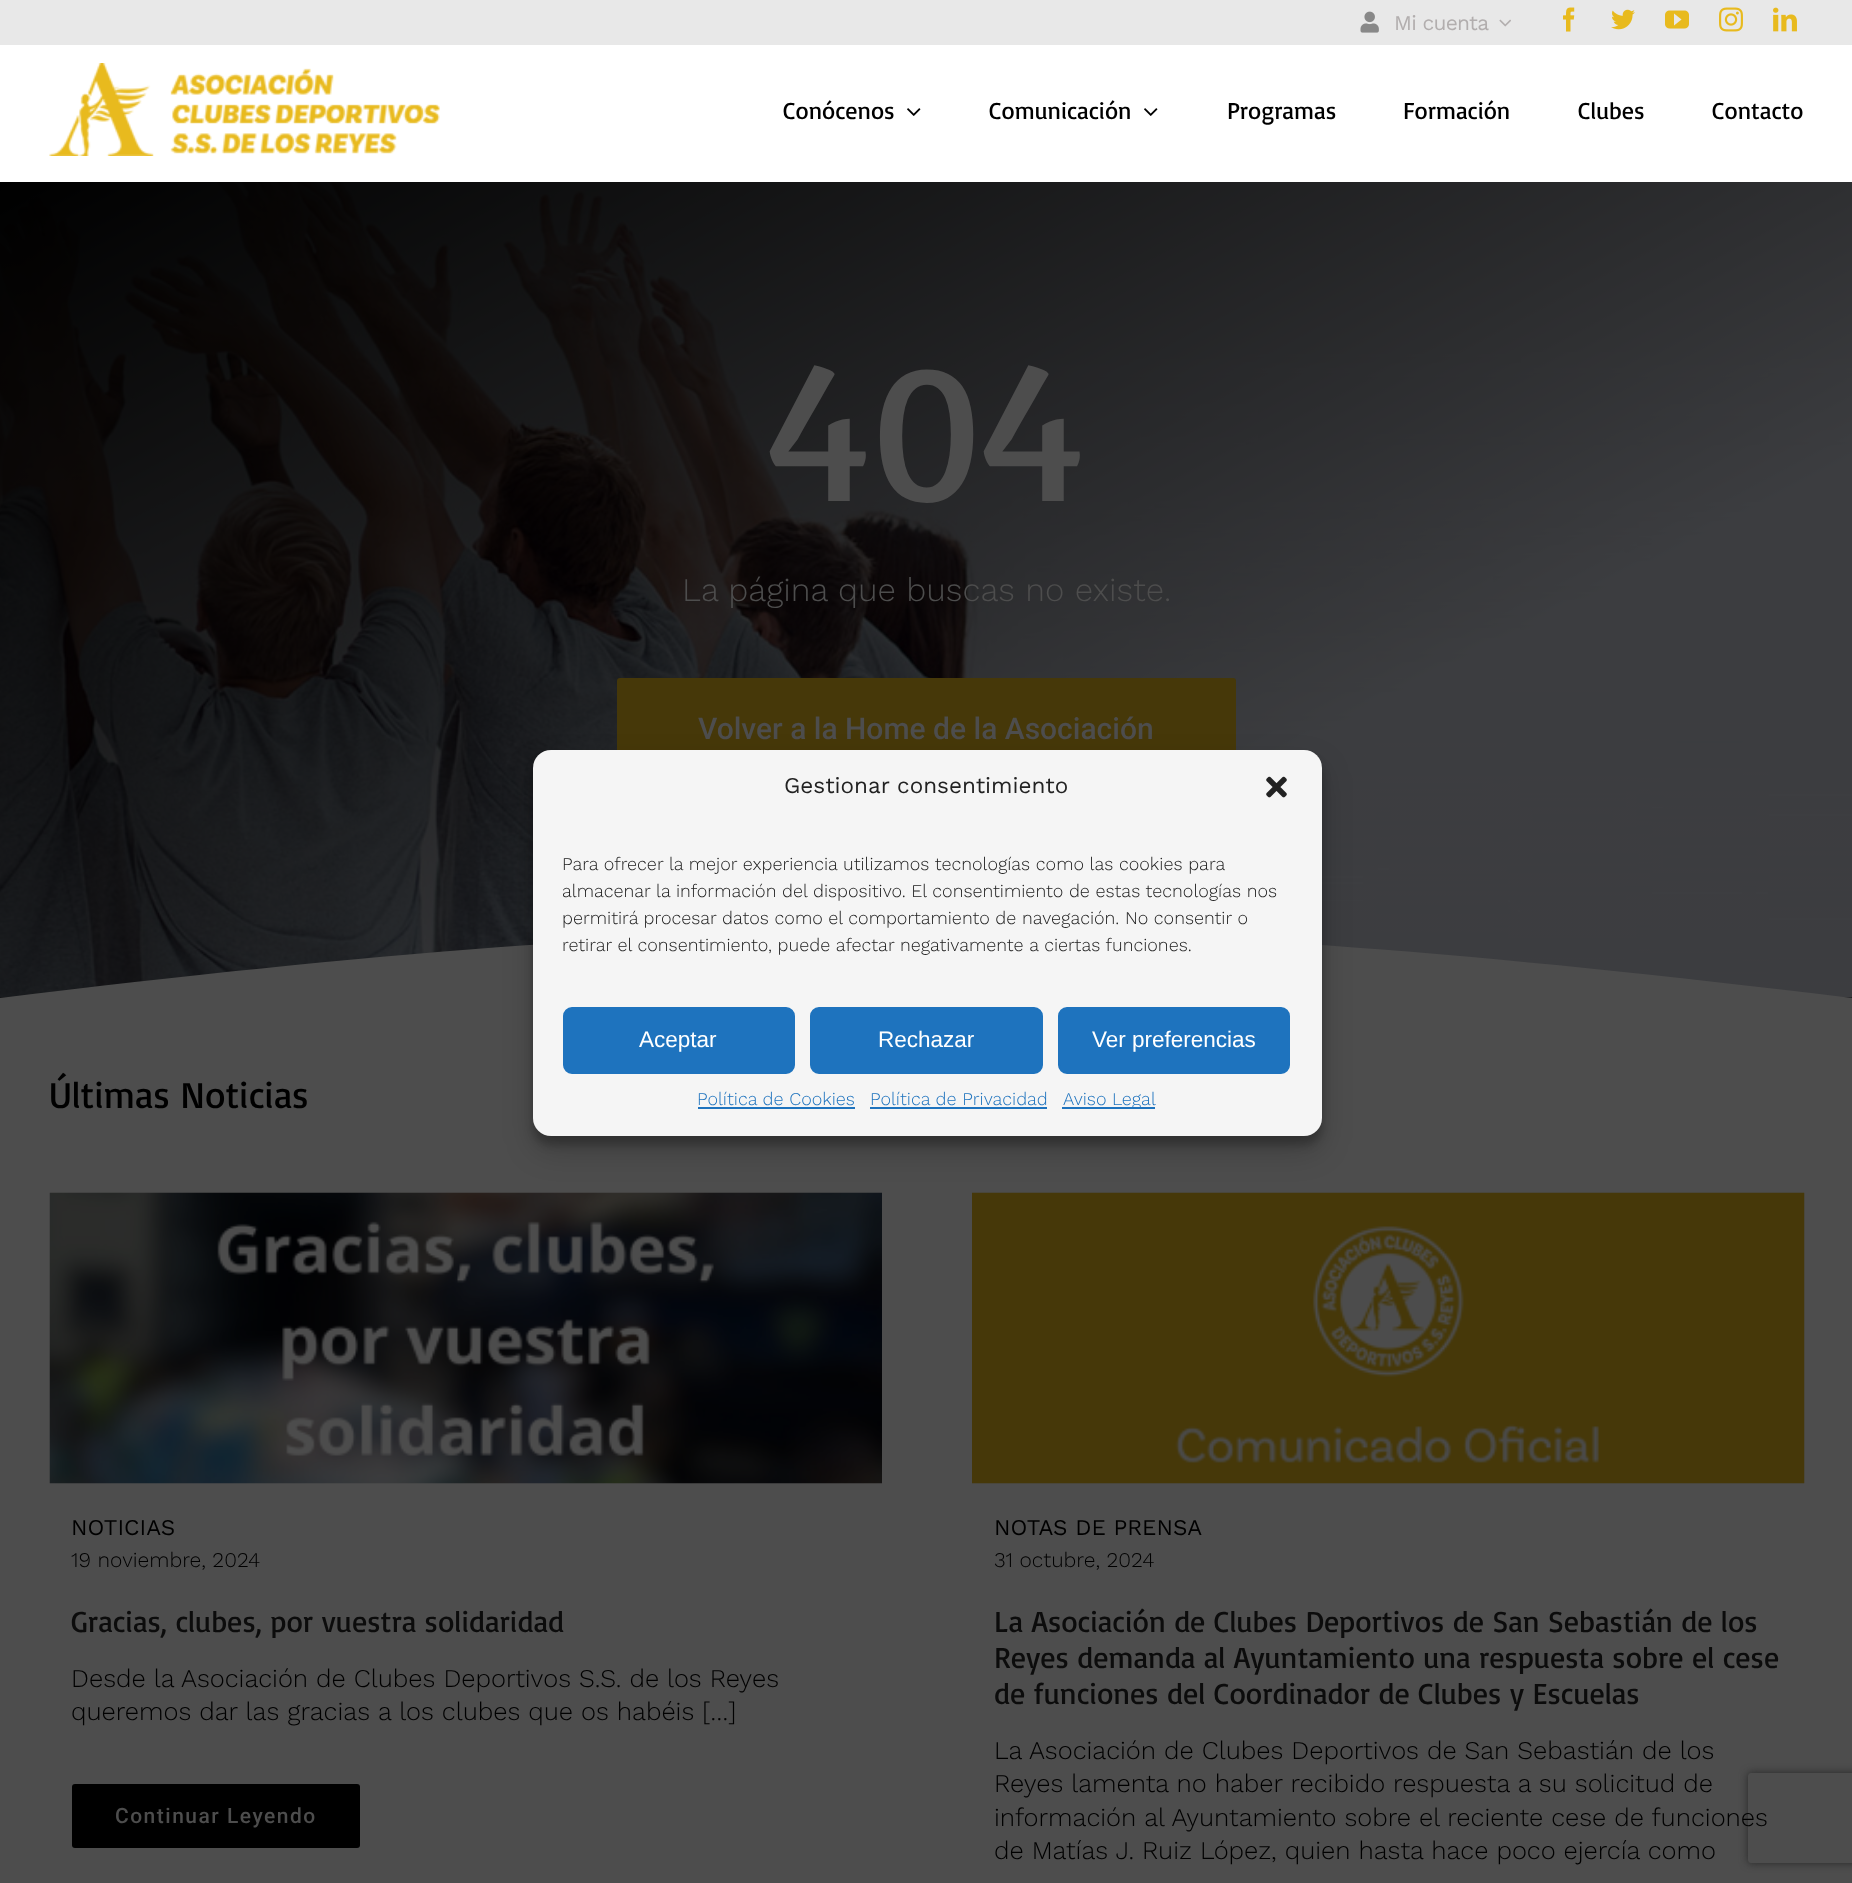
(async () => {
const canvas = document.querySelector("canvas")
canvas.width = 1852
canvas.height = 1883
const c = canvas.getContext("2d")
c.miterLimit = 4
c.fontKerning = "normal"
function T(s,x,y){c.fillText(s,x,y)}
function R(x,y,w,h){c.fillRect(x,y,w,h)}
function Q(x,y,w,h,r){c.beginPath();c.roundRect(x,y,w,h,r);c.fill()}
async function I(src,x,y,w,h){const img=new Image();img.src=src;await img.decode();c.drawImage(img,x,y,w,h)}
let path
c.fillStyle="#4d4d4d"
R(0,0,1852,1883)
c.fillStyle="#e8e8e8"
R(0,0,1852,45)
await I("1.png",1360,11,19,22)
c.letterSpacing="-0.75px"
c.font="21px Work Sans"
c.fillStyle="#b2aeae"
T("Mi cuenta",1394,30)
await I("2.png",1499,19,12,8)
await I("3.png",1563,7,12,25)
await I("4.png",1611,9,24,21)
await I("5.png",1665,10,24,19)
await I("6.png",1719,7,24,25)
await I("7.png",1773,7,24,25)
c.fillStyle="#fff"
R(0,45,1852,137)
await I("8.png",49,63,391,93)
c.letterSpacing="0px"
c.font="24px Basic"
c.fillStyle="#000"
T("Conócenos",783,119)
await I("9.png",907,108,14,8)
T("Comunicación",989,119)
await I("9.png",1144,108,14,8)
T("Programas",1227,119)
T("Formación",1403,119)
T("Clubes",1578,119)
T("Contacto",1712,119)
R(0,997,1852,1)
await I("10.png",0,182,1852,816)
c.font="195px Basic"
c.fillStyle="#4d4d4d"
T("404",767,501)
c.font="300 33px Work Sans"
T("La página que buscas no existe.",682,601)
c.fillStyle="#463809"
Q(617,678,619,99,3)
c.font="500 30px Roboto"
c.fillStyle="#4d4d4d"
T("Volver a la Home de la Asociación",698,739)
path = new Path2D("M-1 998c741-90 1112-90 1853 0z")
c.fill(path)
c.font="37.5px Basic"
c.fillStyle="#000"
T("Últimas Noticias",49,1108)
await I("11.png",49,1192,833,292)
c.font="22.5px Work Sans"
T("NOTICIAS",71,1535)
c.font="300 21px Work Sans"
T("19 noviembre, 2024",71,1567)
c.font="30px Basic"
c.fillStyle="#0c0c0c"
T("Gracias, clubes, por vuestra solidaridad",71,1632)
c.font="300 25.5px Work Sans"
c.fillStyle="#000"
T("Desde la Asociación de Clubes Deportivos S.S. de los Reyes",71,1687)
T("queremos dar las gracias a los clubes que os habéis […]",71,1720)
Q(72,1784,288,64,3)
c.letterSpacing="1.5px"
c.font="500 21px Roboto"
c.fillStyle="#4d4d4d"
T("Continuar Leyendo",115,1823)
await I("12.png",972,1192,833,292)
c.letterSpacing="0px"
c.font="22.5px Work Sans"
c.fillStyle="#000"
T("NOTAS DE PRENSA",994,1535)
c.font="300 21px Work Sans"
T("31 octubre, 2024",994,1567)
c.font="30px Basic"
c.fillStyle="#0c0c0c"
T("La Asociación de Clubes Deportivos de San Sebastián de los",994,1632)
T("Reyes demanda al Ayuntamiento una respuesta sobre el cese",994,1668)
T("de funciones del Coordinador de Clubes y Escuelas",994,1704)
c.font="300 25.5px Work Sans"
c.fillStyle="#000"
T("La Asociación de Clubes Deportivos de San Sebastián de los",994,1759)
T("Reyes lamenta no haber recibido respuesta a su solicitud de",994,1792)
c.save()
path = new Path2D("M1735 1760h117v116h-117zm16 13h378c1.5 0 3 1.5 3 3v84c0 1.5-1.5 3-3 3h-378c-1.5 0-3-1.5-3-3v-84c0-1.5 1.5-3 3-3z")
c.clip(path,"evenodd")
c.fillStyle="#262626"
c.filter="blur(4px)"
c.beginPath()
c.roundRect(1748,1773,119,90,3)
c.fill()
c.filter="none"
c.restore()
T("información al Ayuntamiento sobre el reciente cese de funciones",994,1826)
T("de Matías J. Ruiz López, quien hasta hace poco ejercía como",994,1859)
c.fillStyle="#0000003b"
c.filter="blur(4.5px)"
c.beginPath()
c.roundRect(533,759,789,386,18)
c.fill()
c.filter="none"
c.fillStyle="#00000030"
c.filter="blur(15px)"
c.beginPath()
c.roundRect(533,765,789,386,18)
c.fill()
c.filter="none"
c.fillStyle="#f5f5f5"
Q(533,750,789,386,18)
c.font="22.5px Work Sans"
c.fillStyle="#222"
T("Gestionar consentimiento",784,793)
await I("13.png",1266,776,21,22)
c.font="300 18px Work Sans"
T("Para ofrecer la mejor experiencia utilizamos tecnologías como las cookies para",562,870)
T("almacenar la información del dispositivo. El consentimiento de estas tecnologías nos",562,897)
T("permitirá procesar datos como el comportamiento de navegación. No consentir o",562,924)
T("retirar el consentimiento, puede afectar negativamente a ciertas funciones.",562,951)
c.fillStyle="#1e73be"
c.beginPath()
c.roundRect(564,1008,230,65,8)
c.fill()
c.strokeStyle="#1e73be"
c.lineWidth=2
c.stroke()
c.font="22.5px Liberation Sans"
c.fillStyle="#fff"
T("Aceptar",639,1047)
c.fillStyle="#1e73be"
c.beginPath()
c.roundRect(811,1008,231,65,8)
c.fill()
c.stroke()
c.fillStyle="#fff"
T("Rechazar",878,1047)
c.fillStyle="#1e73be"
c.beginPath()
c.roundRect(1059,1008,230,65,8)
c.fill()
c.stroke()
c.fillStyle="#fff"
T("Ver preferencias",1092,1047)
c.font="300 18px Work Sans"
c.fillStyle="#1e73be"
T("Política de Cookies",697,1105)
R(698,1107,157,2)
T("Política de Privacidad",870,1105)
R(870,1107,177,2)
R(1062,1107,93,2)
T("Aviso Legal",1063,1105)
})()
